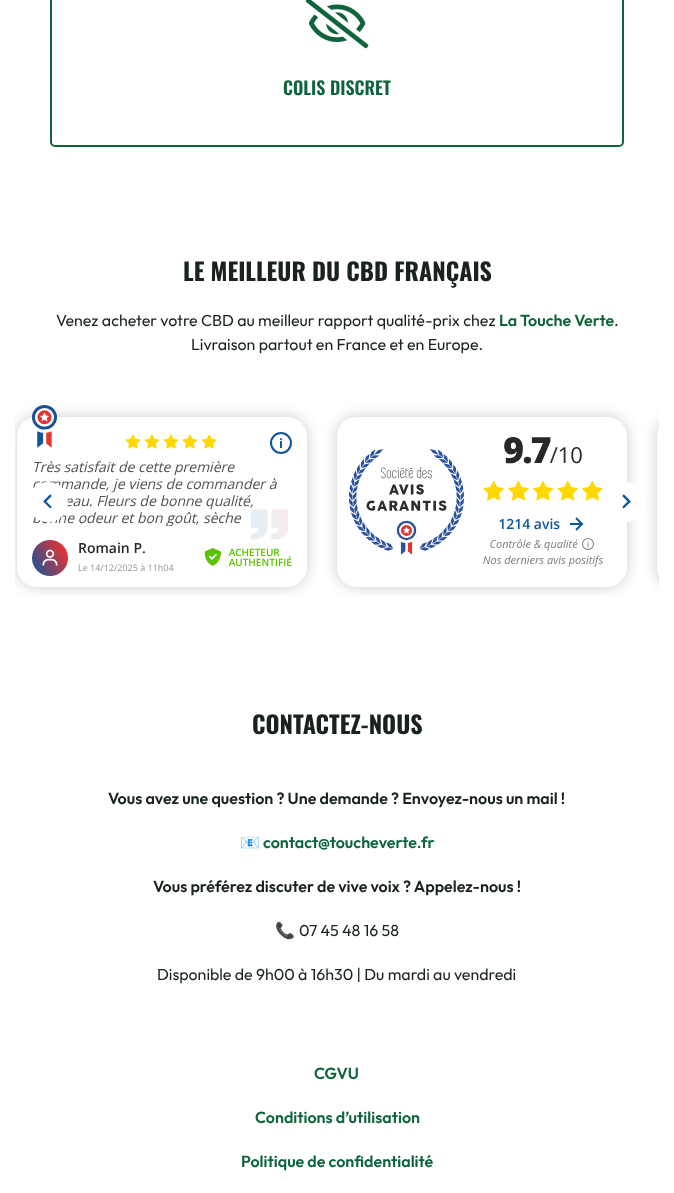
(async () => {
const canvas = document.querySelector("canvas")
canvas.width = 674
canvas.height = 1193
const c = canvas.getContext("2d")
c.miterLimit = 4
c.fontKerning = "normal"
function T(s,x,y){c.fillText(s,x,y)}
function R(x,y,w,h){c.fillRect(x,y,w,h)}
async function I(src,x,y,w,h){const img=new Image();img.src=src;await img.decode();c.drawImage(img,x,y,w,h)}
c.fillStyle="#fff"
R(0,0,674,1193)
c.beginPath()
c.roundRect(51,-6,572,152,4)
c.strokeStyle="#0f643c"
c.lineWidth=2
c.stroke()
await I("1.png",305,0,64,49)
c.font="600 18px Oswald"
c.fillStyle="#0f643c"
T("COLIS DISCRET",283,95)
c.font="bold 24px Oswald"
c.fillStyle="#19231e"
T("LE MEILLEUR DU CBD FRANÇAIS",183,281)
c.font="16px Outfit"
T("Venez acheter votre CBD au meilleur rapport qualité-prix chez",56,326)
c.font="600 16px Outfit"
c.fillStyle="#0f643c"
T("La Touche Verte",499,326)
c.font="16px Outfit"
c.fillStyle="#19231e"
T(".",614,326)
T("Livraison partout en France et en Europe.",191,350)
await I("2.png",15,405,644,191)
c.font="bold 24px Oswald"
T("CONTACTEZ-NOUS",252,734)
c.font="600 16px Outfit"
T("Vous avez une question ? Une demande ? Envoyez-nous un mail !",108,804)
c.font="bold 16px Noto Color Emoji"
c.fillStyle="#0f643c"
T("📧",240,848)
c.font="600 16px Outfit"
T("contact@toucheverte.fr",263,848)
c.fillStyle="#19231e"
T("Vous préférez discuter de vive voix ? Appelez-nous !",153,892)
c.font="16px Noto Color Emoji"
T("📞",275,936)
c.font="16px Outfit"
T("07 45 48 16 58",299,936)
T("Disponible de 9h00 à 16h30 | Du mardi au vendredi",157,980)
c.font="600 16px Outfit"
c.fillStyle="#0f643c"
T("CGVU",314,1079)
T("Conditions d’utilisation",255,1123)
T("Politique de confidentialité",241,1167)
})()
